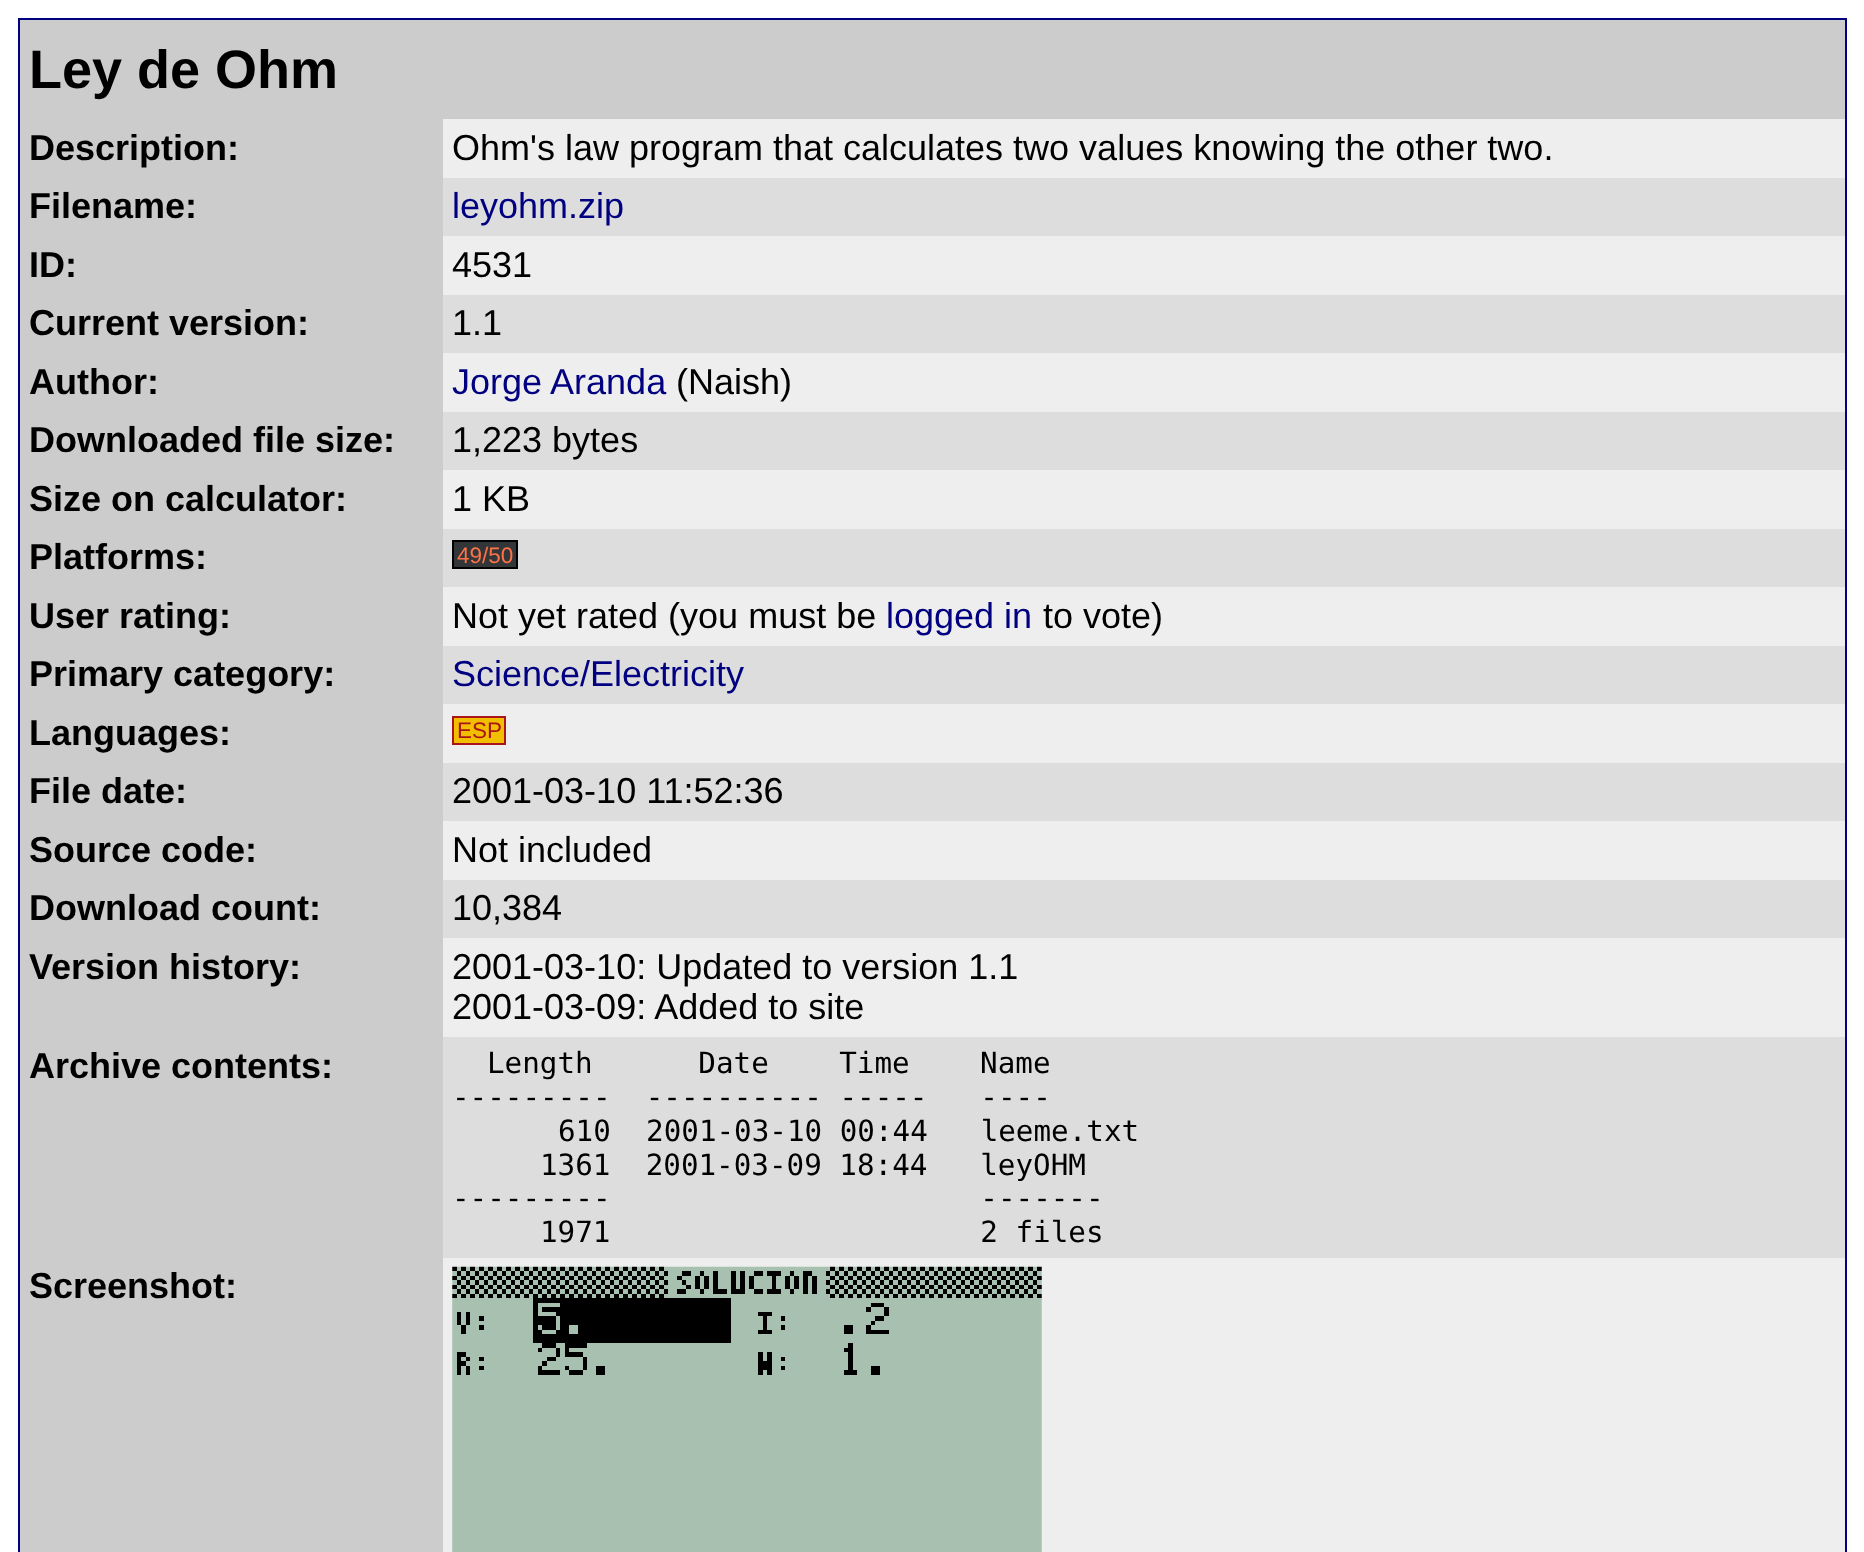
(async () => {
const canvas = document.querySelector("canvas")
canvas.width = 1864
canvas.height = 1552
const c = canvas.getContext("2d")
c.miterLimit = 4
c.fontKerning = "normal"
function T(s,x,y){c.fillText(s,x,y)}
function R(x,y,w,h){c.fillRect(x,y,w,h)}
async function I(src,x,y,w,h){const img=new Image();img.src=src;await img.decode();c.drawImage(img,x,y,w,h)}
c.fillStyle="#fff"
R(0,0,1864,1552)
c.fillStyle="#000080"
R(18,18,1829,1534)
c.fillStyle="#eee"
R(443,119,1402,1433)
c.fillStyle="#ccc"
R(20,20,1825,99)
c.font="bold 54px Liberation Sans"
c.fillStyle="#000"
T("Ley de Ohm",29,88)
c.fillStyle="#ccc"
R(20,119,423,1433)
c.font="bold 36px Liberation Sans"
c.fillStyle="#000"
T("Description:",29,160)
c.font="36px Liberation Sans"
T("Ohm's law program that calculates two values knowing the other two.",452,160)
c.font="bold 36px Liberation Sans"
T("Filename:",29,218)
c.fillStyle="#ddd"
R(443,178,1402,58)
c.font="36px Liberation Sans"
c.fillStyle="#000080"
T("leyohm.zip",452,218)
c.font="bold 36px Liberation Sans"
c.fillStyle="#000"
T("ID:",29,277)
c.font="36px Liberation Sans"
T("4531",452,277)
c.font="bold 36px Liberation Sans"
T("Current version:",29,335)
c.fillStyle="#ddd"
R(443,295,1402,58)
c.font="36px Liberation Sans"
c.fillStyle="#000"
T("1.1",452,335)
c.font="bold 36px Liberation Sans"
T("Author:",29,394)
c.font="36px Liberation Sans"
c.fillStyle="#000080"
T("Jorge Aranda",452,394)
c.fillStyle="#000"
T("(Naish)",676,394)
c.font="bold 36px Liberation Sans"
T("Downloaded file size:",29,452)
c.fillStyle="#ddd"
R(443,412,1402,58)
c.font="36px Liberation Sans"
c.fillStyle="#000"
T("1,223 bytes",452,452)
c.font="bold 36px Liberation Sans"
T("Size on calculator:",29,511)
c.font="36px Liberation Sans"
T("1 KB",452,511)
c.font="bold 36px Liberation Sans"
T("Platforms:",29,569)
c.fillStyle="#ddd"
R(443,529,1402,58)
c.fillStyle="#333639"
c.beginPath()
c.rect(453,541,64,27)
c.fill()
c.strokeStyle="#000"
c.lineWidth=2
c.stroke()
c.font="22.5px Liberation Sans"
c.fillStyle="#fd7247"
T("49/50",457,563)
c.font="bold 36px Liberation Sans"
c.fillStyle="#000"
T("User rating:",29,628)
c.font="36px Liberation Sans"
T("Not yet rated (you must be",452,628)
c.fillStyle="#000080"
T("logged in",886,628)
c.fillStyle="#000"
T("to vote)",1043,628)
c.font="bold 36px Liberation Sans"
T("Primary category:",29,686)
c.fillStyle="#ddd"
R(443,646,1402,58)
c.font="36px Liberation Sans"
c.fillStyle="#000080"
T("Science/Electricity",452,686)
c.font="bold 36px Liberation Sans"
c.fillStyle="#000"
T("Languages:",29,745)
c.fillStyle="#f1bf00"
c.beginPath()
c.rect(453,717,52,27)
c.fill()
c.strokeStyle="#aa151b"
c.stroke()
c.font="22.5px Liberation Sans"
c.fillStyle="#aa151b"
T("ESP",457,738)
c.font="bold 36px Liberation Sans"
c.fillStyle="#000"
T("File date:",29,803)
c.fillStyle="#ddd"
R(443,763,1402,58)
c.font="36px Liberation Sans"
c.fillStyle="#000"
T("2001-03-10 11:52:36",452,803)
c.font="bold 36px Liberation Sans"
T("Source code:",29,862)
c.font="36px Liberation Sans"
T("Not included",452,862)
c.font="bold 36px Liberation Sans"
T("Download count:",29,920)
c.fillStyle="#ddd"
R(443,880,1402,58)
c.font="36px Liberation Sans"
c.fillStyle="#000"
T("10,384",452,920)
c.font="bold 36px Liberation Sans"
T("Version history:",29,979)
c.font="36px Liberation Sans"
T("2001-03-10: Updated to version 1.1",452,979)
T("2001-03-09: Added to site",452,1019)
c.font="bold 36px Liberation Sans"
T("Archive contents:",29,1078)
c.fillStyle="#ddd"
R(443,1037,1402,221)
c.font="29.25px DejaVu Sans Mono"
c.fillStyle="#000"
T("Length      Date    Time    Name",487,1073)
T("---------  ---------- -----   ----",452,1107)
T("610  2001-03-10 00:44   leeme.txt",558,1141)
T("1361  2001-03-09 18:44   leyOHM",540,1175)
T("---------                     -------",452,1208)
T("1971                     2 files",540,1242)
c.font="bold 36px Liberation Sans"
T("Screenshot:",29,1298)
await I("1.png",452,1266,590,286)
})()
